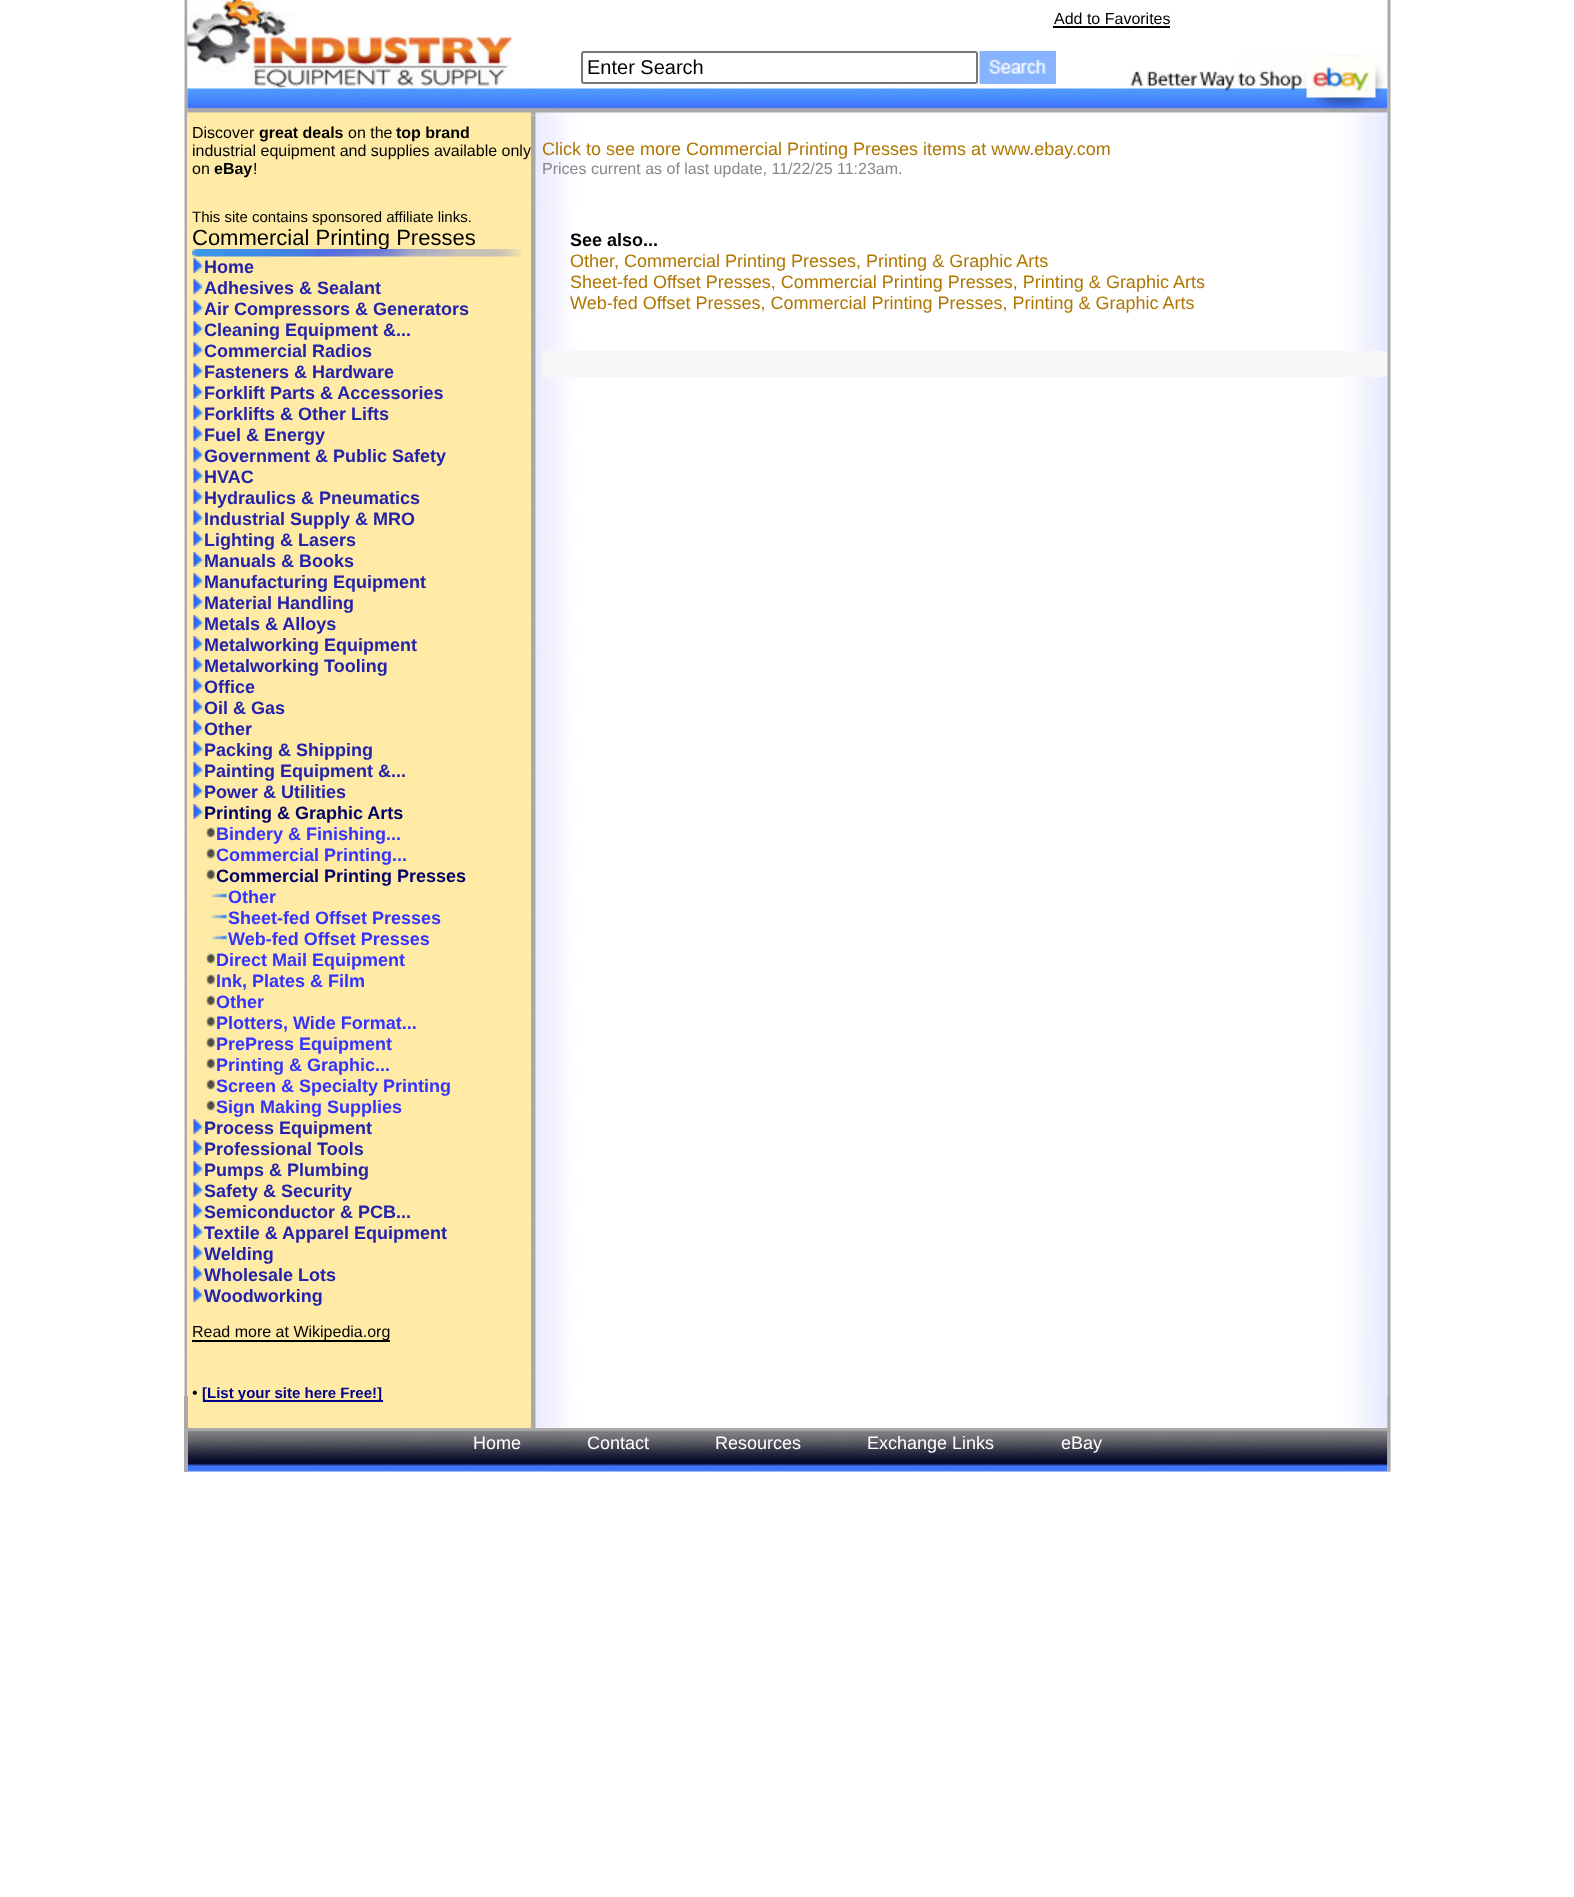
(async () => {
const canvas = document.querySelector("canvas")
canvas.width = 1574
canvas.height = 1897
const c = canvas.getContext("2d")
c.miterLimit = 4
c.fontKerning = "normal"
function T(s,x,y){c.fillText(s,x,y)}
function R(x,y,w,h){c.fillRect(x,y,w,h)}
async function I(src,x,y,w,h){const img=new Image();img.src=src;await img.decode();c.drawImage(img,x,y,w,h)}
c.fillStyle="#fff"
R(0,0,1574,1897)
await I("1.png",184,0,4,1396)
await I("5.png",187,105,1201,11)
c.fillStyle="#ffeba6"
R(187,115,344,1313)
c.fillStyle="#aaa"
R(184,1396,4,76)
await I("2.png",187,0,368,105)
await I("3.png",555,54,833,51)
c.font="16px Liberation Sans"
c.fillStyle="#000"
T("Add to Favorites",1054,24)
R(1053,26,117,2)
c.beginPath()
c.roundRect(582,52,395,31,2)
c.strokeStyle="#767676"
c.lineWidth=2
c.stroke()
c.font="20px Liberation Sans"
T("Enter Search",587,74)
await I("4.png",979,51,77,33)
c.font="16px Liberation Sans"
T("Discover",192,138)
c.font="bold 16px Liberation Sans"
T("great deals",259,138)
c.font="16px Liberation Sans"
T("on the",348,138)
c.font="bold 16px Liberation Sans"
T("top brand",396,138)
c.font="16px Liberation Sans"
T("industrial equipment and supplies available only",192,156)
T("on",192,174)
c.font="bold 16px Liberation Sans"
T("eBay",214,174)
c.font="16px Liberation Sans"
T("!",253,174)
c.font="15px Liberation Sans"
T("This site contains sponsored affiliate links.",192,222)
c.font="22px Liberation Sans"
T("Commercial Printing Presses",192,245)
await I("6.png",192,249,330,8)
await I("7.png",192,258,12,15)
c.font="bold 18px Liberation Sans"
c.fillStyle="#22a"
T("Home",204,273)
await I("7.png",192,279,12,15)
T("Adhesives & Sealant",204,294)
await I("7.png",192,300,12,15)
T("Air Compressors & Generators",204,315)
await I("7.png",192,321,12,15)
T("Cleaning Equipment &...",204,336)
await I("7.png",192,342,12,15)
T("Commercial Radios",204,357)
await I("7.png",192,363,12,15)
T("Fasteners & Hardware",204,378)
await I("7.png",192,384,12,15)
T("Forklift Parts & Accessories",204,399)
await I("7.png",192,405,12,15)
T("Forklifts & Other Lifts",204,420)
await I("7.png",192,426,12,15)
T("Fuel & Energy",204,441)
await I("7.png",192,447,12,15)
T("Government & Public Safety",204,462)
await I("7.png",192,468,12,15)
T("HVAC",204,483)
await I("7.png",192,489,12,15)
T("Hydraulics & Pneumatics",204,504)
await I("7.png",192,510,12,15)
T("Industrial Supply & MRO",204,525)
await I("7.png",192,531,12,15)
T("Lighting & Lasers",204,546)
await I("7.png",192,552,12,15)
T("Manuals & Books",204,567)
await I("7.png",192,573,12,15)
T("Manufacturing Equipment",204,588)
await I("7.png",192,594,12,15)
T("Material Handling",204,609)
await I("7.png",192,615,12,15)
T("Metals & Alloys",204,630)
await I("7.png",192,636,12,15)
T("Metalworking Equipment",204,651)
await I("7.png",192,657,12,15)
T("Metalworking Tooling",204,672)
await I("7.png",192,678,12,15)
T("Office",204,693)
await I("7.png",192,699,12,15)
T("Oil & Gas",204,714)
await I("7.png",192,720,12,15)
T("Other",204,735)
await I("7.png",192,741,12,15)
T("Packing & Shipping",204,756)
await I("7.png",192,762,12,15)
T("Painting Equipment &...",204,777)
await I("7.png",192,783,12,15)
T("Power & Utilities",204,798)
await I("7.png",192,804,12,15)
c.fillStyle="#006"
T("Printing & Graphic Arts",204,819)
await I("8.png",204,825,12,13)
c.fillStyle="#33f"
T("Bindery & Finishing...",216,840)
await I("8.png",204,846,12,13)
T("Commercial Printing...",216,861)
await I("8.png",204,867,12,13)
c.fillStyle="#006"
T("Commercial Printing Presses",216,882)
await I("9.png",204,888,24,12)
c.fillStyle="#33f"
T("Other",228,903)
await I("9.png",204,909,24,12)
T("Sheet-fed Offset Presses",228,924)
await I("9.png",204,930,24,12)
T("Web-fed Offset Presses",228,945)
await I("8.png",204,951,12,13)
T("Direct Mail Equipment",216,966)
await I("8.png",204,972,12,13)
T("Ink, Plates & Film",216,987)
await I("8.png",204,993,12,13)
T("Other",216,1008)
await I("8.png",204,1014,12,13)
T("Plotters, Wide Format...",216,1029)
await I("8.png",204,1035,12,13)
T("PrePress Equipment",216,1050)
await I("8.png",204,1056,12,13)
T("Printing & Graphic...",216,1071)
await I("8.png",204,1077,12,13)
T("Screen & Specialty Printing",216,1092)
await I("8.png",204,1098,12,13)
T("Sign Making Supplies",216,1113)
await I("7.png",192,1119,12,15)
c.fillStyle="#22a"
T("Process Equipment",204,1134)
await I("7.png",192,1140,12,15)
T("Professional Tools",204,1155)
await I("7.png",192,1161,12,15)
T("Pumps & Plumbing",204,1176)
await I("7.png",192,1182,12,15)
T("Safety & Security",204,1197)
await I("7.png",192,1203,12,15)
T("Semiconductor & PCB...",204,1218)
await I("7.png",192,1224,12,15)
T("Textile & Apparel Equipment",204,1239)
await I("7.png",192,1245,12,15)
T("Welding",204,1260)
await I("7.png",192,1266,12,15)
T("Wholesale Lots",204,1281)
await I("7.png",192,1287,12,15)
T("Woodworking",204,1302)
c.fillStyle="#000"
R(192,1340,198,2)
c.font="16px Liberation Sans"
T("Read more at Wikipedia.org",192,1337)
T("•",192,1398)
c.fillStyle="#008"
R(203,1400,180,2)
c.font="bold 15px Liberation Sans"
T("[List your site here Free!]",202,1398)
await I("10.png",531,115,11,1313)
await I("11.png",541,115,847,1313)
c.font="18px Liberation Sans"
c.fillStyle="#b07600"
T("Click to see more Commercial Printing Presses items at www.ebay.com",542,155)
c.font="16px Liberation Sans"
c.fillStyle="#888"
T("Prices current as of last update, 11/22/25 11:23am.",542,174)
c.font="bold 18px Liberation Sans"
c.fillStyle="#000"
T("See also...",570,246)
c.font="18px Liberation Sans"
c.fillStyle="#b07600"
T("Other, Commercial Printing Presses, Printing & Graphic Arts",570,267)
T("Sheet-fed Offset Presses, Commercial Printing Presses, Printing & Graphic Arts",570,288)
T("Web-fed Offset Presses, Commercial Printing Presses, Printing & Graphic Arts",570,309)
c.fillStyle="#f7f7f7"
R(542,351,846,26)
await I("12.png",188,1428,1200,44)
c.fillStyle="#fff"
T("Home",473,1449)
T("Contact",587,1449)
T("Resources",715,1449)
T("Exchange Links",867,1449)
T("eBay",1061,1449)
await I("13.png",1387,0,4,1472)
await I("14.png",1387,1396,4,76)
})()
